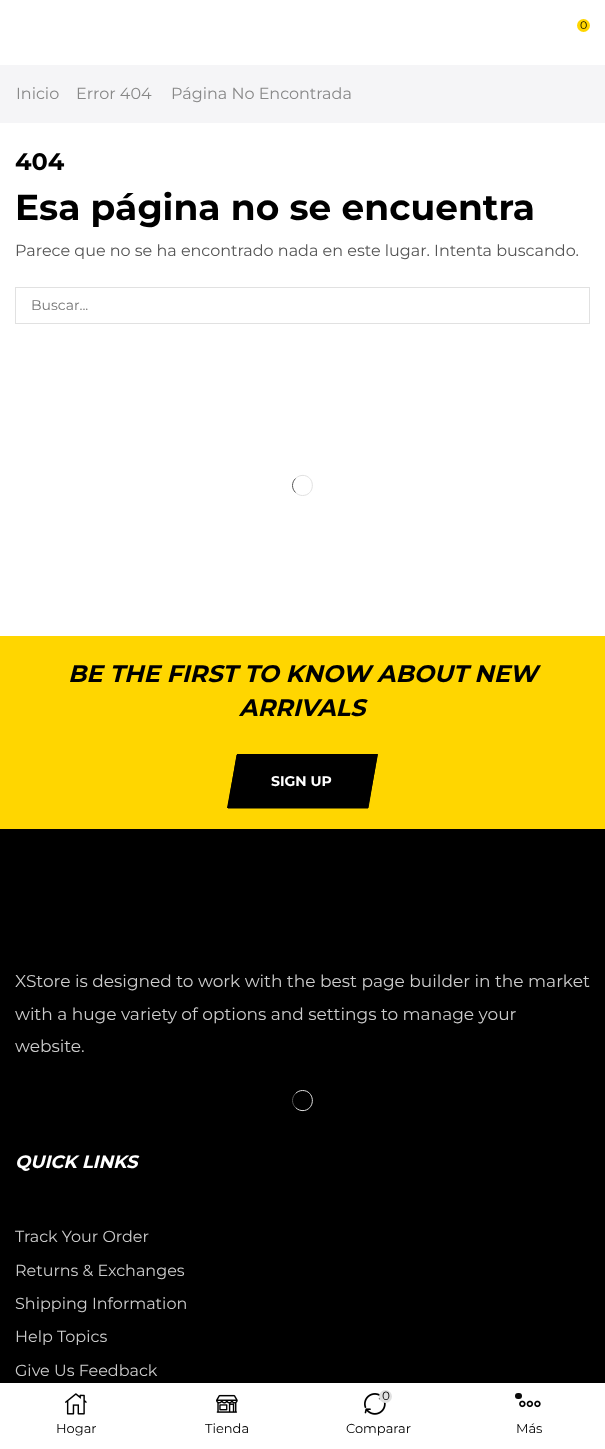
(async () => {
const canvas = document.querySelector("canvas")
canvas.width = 605
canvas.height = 1449
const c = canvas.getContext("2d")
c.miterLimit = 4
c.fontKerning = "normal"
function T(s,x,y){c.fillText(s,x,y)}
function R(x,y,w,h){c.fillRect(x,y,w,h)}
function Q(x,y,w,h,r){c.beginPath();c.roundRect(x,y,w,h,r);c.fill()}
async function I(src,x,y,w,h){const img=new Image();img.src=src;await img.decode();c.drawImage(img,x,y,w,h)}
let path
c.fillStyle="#fff"
R(0,0,605,1449)
c.fillStyle="#ffd600"
c.beginPath()
c.arc(583.5,25.5,6.5,0,7)
c.fill()
c.font="11px Montserrat"
c.fillStyle="#000"
T("0",580,29)
c.fillStyle="#f5f5f7"
R(0,65,605,58)
c.font="16px Montserrat"
c.fillStyle="#888"
T("Inicio",16,99)
T("Error 404",76,99)
T("Página No Encontrada",171,99)
c.font="bold 24px Montserrat"
c.fillStyle="#000"
T("404",15,170)
c.font="bold 36px Montserrat"
T("Esa página no se encuentra",15,220)
c.font="16px Montserrat"
c.fillStyle="#555"
T("Parece que no se ha encontrado nada en este lugar. Intenta buscando.",15,256)
c.strokeStyle="#e1e1e1"
c.strokeRect(15.5,287.5,574,36)
c.font="14px Montserrat"
c.fillStyle="#757575"
T("Buscar...",31,310)
c.fillStyle="#000"
R(0,829,605,554)
c.fillStyle="#00000026"
c.filter="blur(6px)"
c.beginPath()
c.rect(2,1383,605,66)
c.fill()
c.filter="none"
c.fillStyle="#fff"
R(0,1383,605,66)
await I("1.png",65,1393,22,22)
c.font="13px Montserrat"
c.fillStyle="#000"
T("Hogar",56,1433)
await I("2.png",216,1394,22,19)
T("Tienda",205,1433)
await I("3.png",364,1393,22,22)
c.fillStyle="#e1e1e1"
c.beginPath()
c.arc(385.5,1396.5,6.5,0,7)
c.fill()
c.font="12px Montserrat"
c.fillStyle="#000"
T("0",382,1400)
c.font="13px Montserrat"
T("Comparar",346,1433)
c.fillStyle="#0a0a0a"
Q(515,1393,7,6,3)
await I("4.png",519,1400,22,8)
c.fillStyle="#000"
T("Más",516,1433)
path = new Path2D("M295.5 478.5c2.5-2.5 5.5-3.5 9-3c11.5 2.5 10 20-2 20c-2.5 0-5-1-7-3")
c.stroke(path)
path = new Path2D("M295.5 492.5c-4-4-4-10 0-14")
c.strokeStyle="#555"
c.stroke(path)
c.fillStyle="#ffd600"
R(0,636,605,193)
c.font="italic bold 24px Montserrat"
c.fillStyle="#000"
T("BE THE FIRST TO KNOW ABOUT NEW",68,682)
T("ARRIVALS",239,716)
path = new Path2D("M237 754h141l-10 54h-141z")
c.fill(path)
path = new Path2D("M237 755h140l-9 53h-140z")
c.strokeStyle="#000"
c.stroke(path)
c.font="bold 14px Montserrat"
c.fillStyle="#fff"
T("SIGN UP",271,786)
c.font="17px Montserrat"
c.fillStyle="#ccc"
T("XStore is designed to work with the best page builder in the market",15,987)
T("with a huge variety of options and settings to manage your",15,1020)
T("website.",15,1052)
path = new Path2D("M295.5 1093.5c2-2 4.5-3 7-3c12 0 13.5 17.5 2 20c-3.5 .5-6.5-.5-9-3")
c.strokeStyle="#e1e1e1"
c.stroke(path)
path = new Path2D("M295.5 1107.5c-4-4-4-10 0-14")
c.strokeStyle="#555"
c.stroke(path)
c.font="italic bold 18px Montserrat"
c.fillStyle="#fff"
T("QUICK LINKS",15,1168)
c.font="16px Montserrat"
c.fillStyle="#ccc"
T("Track Your Order",15,1242)
T("Returns & Exchanges",15,1276)
T("Shipping Information",15,1309)
T("Help Topics",15,1342)
T("Give Us Feedback",15,1376)
})()
